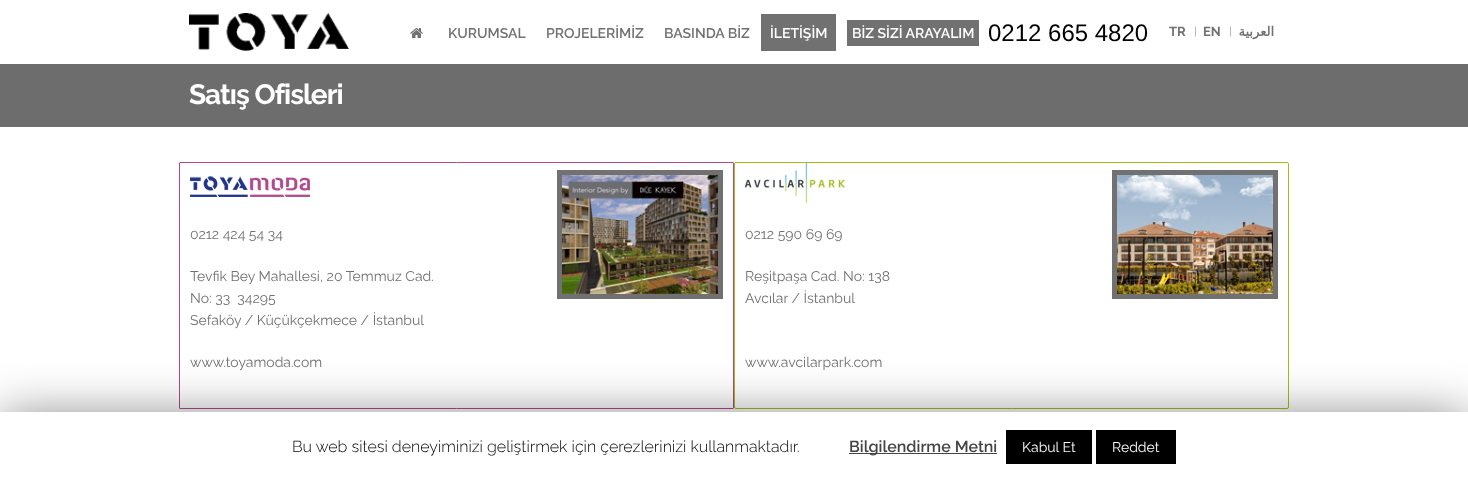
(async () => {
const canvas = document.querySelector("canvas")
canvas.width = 1468
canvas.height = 477
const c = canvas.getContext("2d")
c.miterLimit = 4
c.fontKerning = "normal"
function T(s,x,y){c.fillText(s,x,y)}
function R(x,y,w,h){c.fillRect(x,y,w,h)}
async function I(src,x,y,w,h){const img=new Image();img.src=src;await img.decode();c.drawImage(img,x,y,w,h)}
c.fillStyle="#fff"
R(0,0,1468,477)
await I("1.png",189,13,160,38)
await I("2.png",410,28,13,10)
c.font="600 14px Raleway"
c.fillStyle="#717171"
T("KURUMSAL",448,38)
T("PROJELERİMİZ",546,38)
T("BASINDA BİZ",664,38)
R(761,14,75,37)
c.fillStyle="#fff"
T("İLETİŞİM",770,38)
c.fillStyle="#717171"
R(847,20,132,26)
c.fillStyle="#fff"
T("BİZ SİZİ ARAYALIM",852,38)
c.font="24px Liberation Sans"
c.fillStyle="#000"
T("0212 665 4820",988,41)
c.font="bold 13px Raleway"
c.fillStyle="#717171"
T("TR",1169,36)
c.font="300 11px Raleway"
T("|",1194,35)
c.font="bold 13px Raleway"
T("EN",1203,36)
c.font="300 11px Raleway"
T("|",1229,35)
c.direction="rtl"
c.font="bold 13px DejaVu Sans"
T("العربية",1274,36)
c.fillStyle="#6d6d6d"
R(0,64,1468,63)
c.letterSpacing="-1px"
c.direction="ltr"
c.font="bold 28px Raleway"
c.fillStyle="#fff"
T("Satış Ofisleri",189,104)
c.beginPath()
c.roundRect(179.5,162.5,554,246,.5)
c.strokeStyle="#b24b8c"
c.stroke()
await I("3.png",190,176,120,21)
c.strokeStyle="#717171"
c.lineWidth=5
c.strokeRect(559.5,172.5,161,124)
await I("4.png",562,175,156,119)
c.letterSpacing="0px"
c.font="14px Raleway"
c.fillStyle="#717171"
T("0212 424 54 34",190,239)
T("Tevfik Bey Mahallesi, 20 Temmuz Cad.",190,281)
T("No: 33  34295",190,303)
T("Sefaköy / Küçükçekmece / İstanbul",190,325)
T("www.toyamoda.com",190,367)
c.beginPath()
c.roundRect(734.5,162.5,554,246,1.5)
c.strokeStyle="#9fbe18"
c.lineWidth=1
c.stroke()
await I("5.png",745,163,100,40)
c.strokeStyle="#717171"
c.lineWidth=5
c.strokeRect(1114.5,172.5,161,124)
await I("6.png",1117,175,156,119)
T("0212 590 69 69",745,239)
T("Reşitpaşa Cad. No: 138",745,281)
T("Avcılar / İstanbul",745,303)
T("www.avcilarpark.com",745,367)
c.fillStyle="#00000080"
c.filter="blur(25px)"
c.beginPath()
c.rect(0,417,1468,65)
c.fill()
c.filter="none"
c.fillStyle="#fff"
R(0,412,1468,65)
c.font="300 16px Raleway"
c.fillStyle="#000"
T("Bu web sitesi deneyiminizi geliştirmek için çerezlerinizi kullanmaktadır.",292,452)
c.fillStyle="#444"
R(849,453,148,1)
c.font="600 16px Raleway"
T("Bilgilendirme Metni",849,452)
c.fillStyle="#000"
R(1006,430,86,34)
c.font="14px Raleway"
c.fillStyle="#fff"
T("Kabul Et",1022,452)
c.fillStyle="#000"
R(1096,430,80,34)
c.fillStyle="#fff"
T("Reddet",1112,452)
})()
